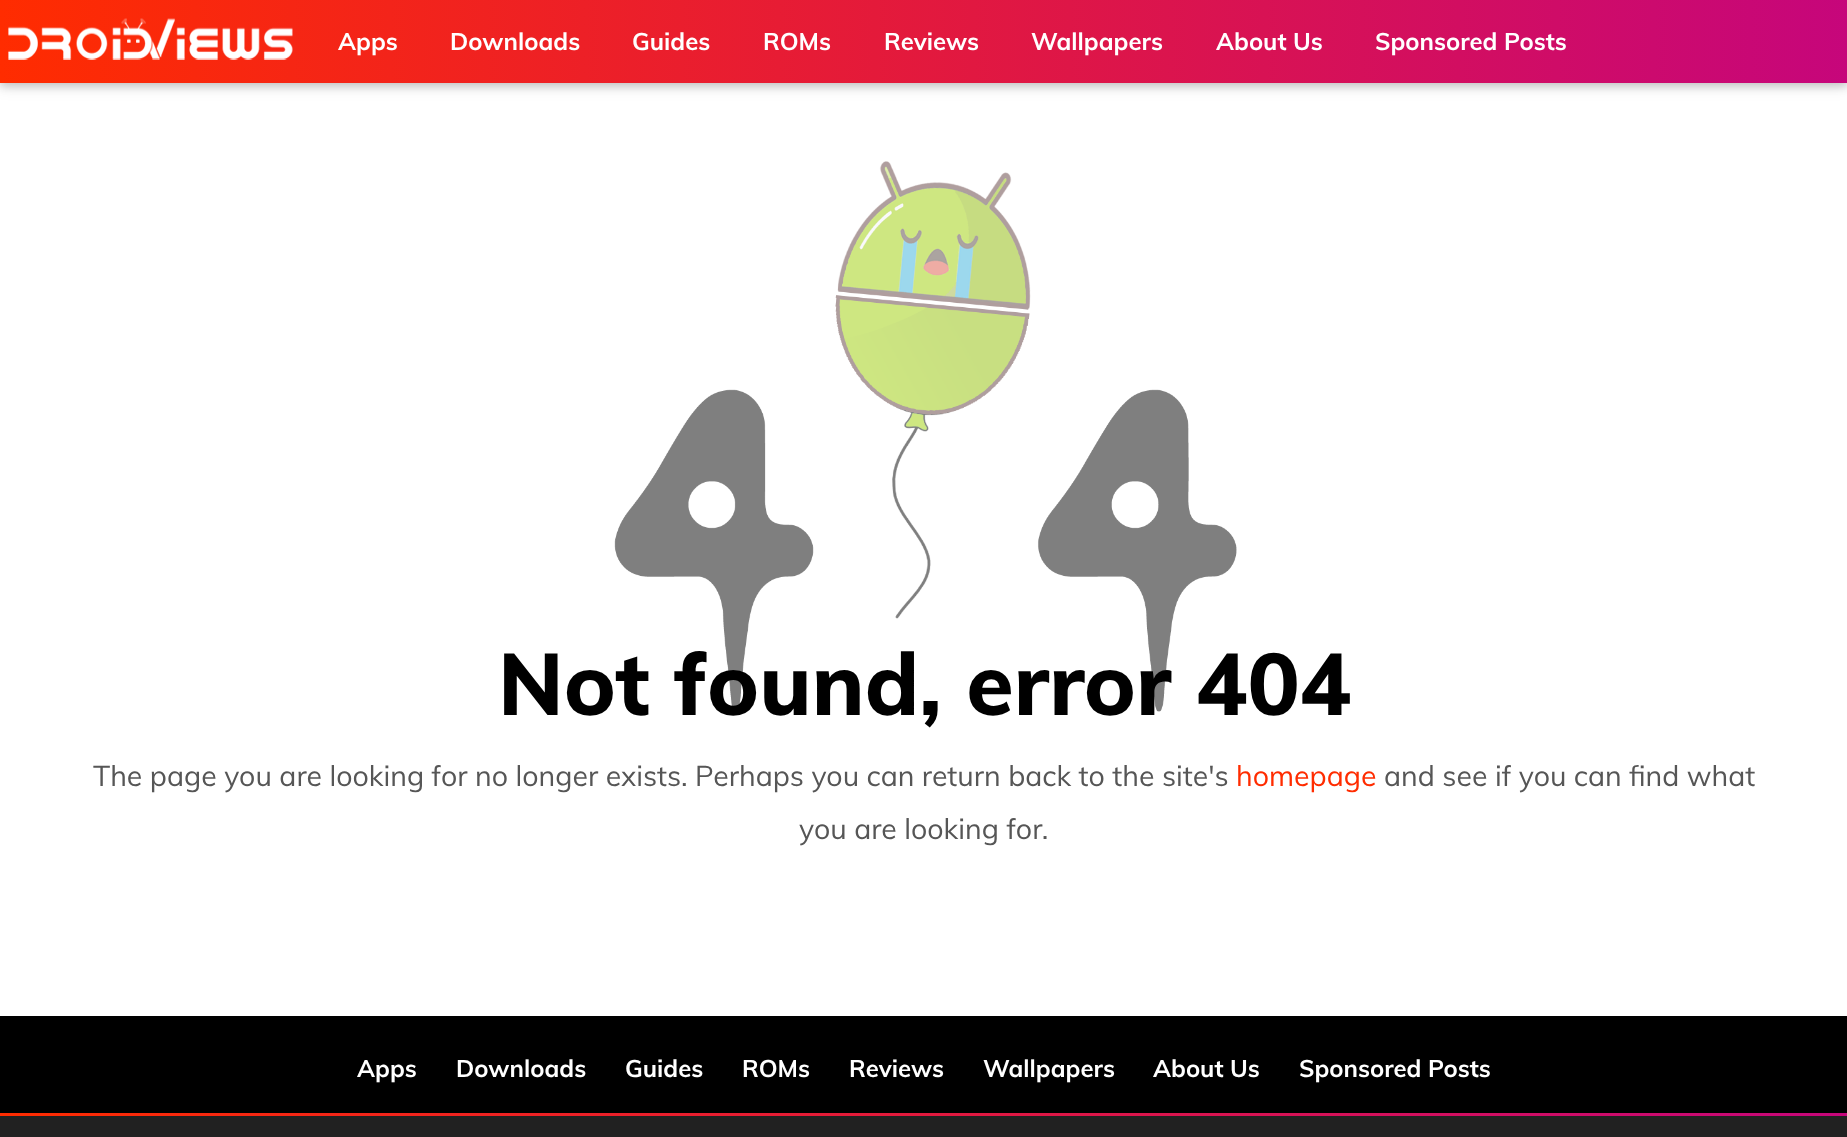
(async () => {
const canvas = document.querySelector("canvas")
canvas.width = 1847
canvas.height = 1137
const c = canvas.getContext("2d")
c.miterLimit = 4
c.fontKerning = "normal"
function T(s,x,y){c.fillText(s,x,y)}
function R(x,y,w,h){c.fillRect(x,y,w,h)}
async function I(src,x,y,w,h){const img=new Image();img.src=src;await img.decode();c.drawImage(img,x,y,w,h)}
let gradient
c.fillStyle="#fff"
R(0,0,1847,1137)
c.fillStyle="#0000001f"
c.filter="blur(7.5px)"
c.beginPath()
c.rect(0,3,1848,83)
c.fill()
c.filter="none"
c.fillStyle="#00000029"
c.filter="blur(4px)"
c.beginPath()
c.rect(0,3,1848,83)
c.fill()
c.filter="none"
gradient = c.createLinearGradient(0,41,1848,41)
gradient.addColorStop(0,"#ff2c00")
gradient.addColorStop(1,"#c6067b")
c.fillStyle = gradient
R(0,0,1847,83)
await I("1.png",8,18,285,42)
c.font="bold 24px Muli"
c.fillStyle="#fff"
T("Apps",338,50)
T("Downloads",450,50)
T("Guides",632,50)
T("ROMs",763,50)
T("Reviews",884,50)
T("Wallpapers",1031,50)
T("About Us",1216,50)
T("Sponsored Posts",1375,50)
await I("2.png",614,161,623,551)
c.font="800 86.5px Muli"
c.fillStyle="#000"
T("Not found, error 404",498,715)
c.font="28.5px Muli"
c.fillStyle="#565656"
T("The page you are looking for no longer exists. Perhaps you can return back to the site's",93,786)
c.fillStyle="#ff2c00"
T("homepage",1236,786)
c.fillStyle="#565656"
T("and see if you can find what",1384,786)
T("you are looking for.",799,839)
c.fillStyle="#000"
R(0,1016,1847,97)
c.font="bold 24px Muli"
c.fillStyle="#fff"
T("Apps",357,1077)
T("Downloads",456,1077)
T("Guides",625,1077)
T("ROMs",742,1077)
T("Reviews",849,1077)
T("Wallpapers",983,1077)
T("About Us",1153,1077)
T("Sponsored Posts",1299,1077)
gradient = c.createLinearGradient(0,1115,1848,1115)
gradient.addColorStop(0,"#ff2c00")
gradient.addColorStop(1,"#c6067b")
c.fillStyle = gradient
R(0,1113,1847,3)
c.fillStyle="#212121"
R(0,1116,1847,21)
})()
